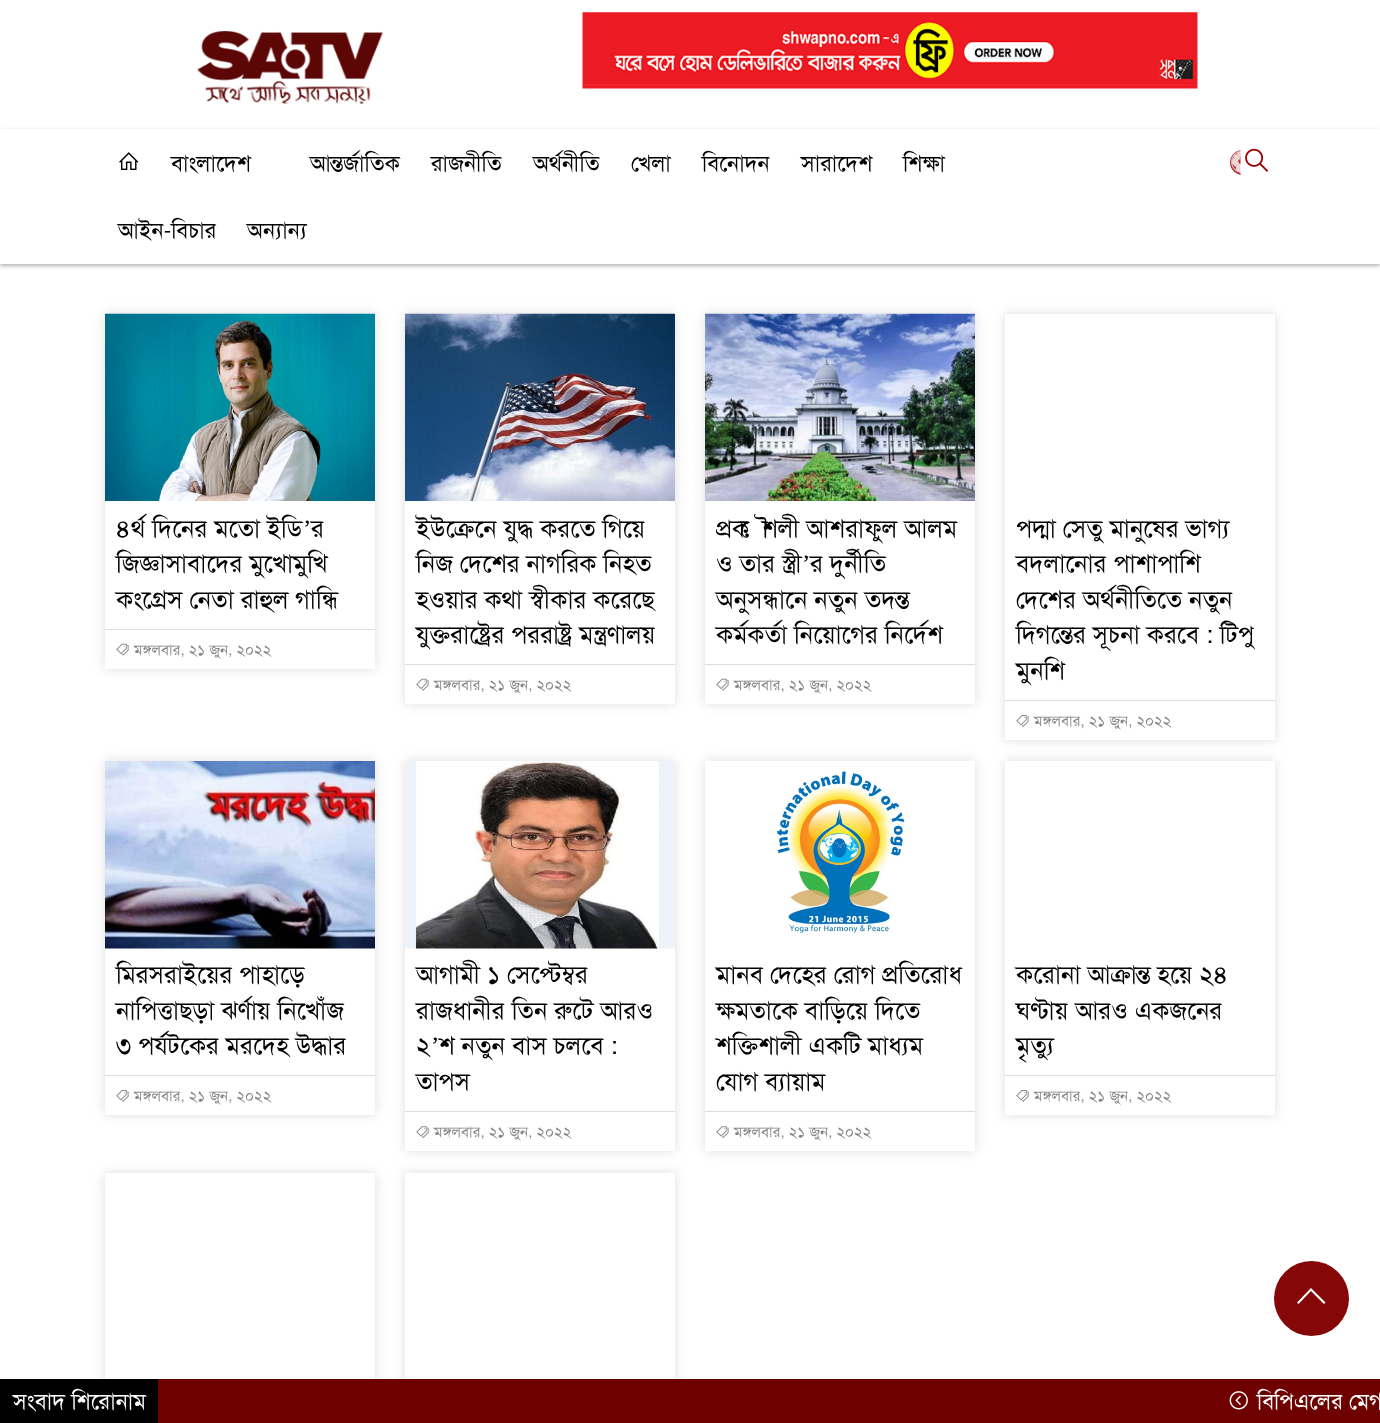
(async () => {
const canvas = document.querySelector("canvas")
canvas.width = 1380
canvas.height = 1423
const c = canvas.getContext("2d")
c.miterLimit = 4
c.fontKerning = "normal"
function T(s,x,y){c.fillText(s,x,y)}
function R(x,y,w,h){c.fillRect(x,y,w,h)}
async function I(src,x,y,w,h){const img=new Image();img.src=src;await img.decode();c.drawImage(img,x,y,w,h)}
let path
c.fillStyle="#fff"
R(0,0,1380,1423)
await I("1.png",197,31,186,73)
await I("2.png",582,12,616,77)
c.fillStyle="#0000004d"
c.filter="blur(2px)"
c.beginPath()
c.rect(0,131,1380,135)
c.fill()
c.filter="none"
c.fillStyle="#fff"
R(0,129,1380,135)
await I("3.png",119,152,20,18)
c.font="22.5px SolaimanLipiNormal"
c.fillStyle="#000"
T("বাংলাদেশ",171,171)
T("আন্তর্জাতিক",310,171)
T("রাজনীতি",431,171)
T("অর্থনীতি",533,171)
T("খেলা",631,171)
T("বিনোদন",702,171)
T("সারাদেশ",801,171)
T("শিক্ষা",903,171)
T("আইন-বিচার",118,238)
T("অন্যান্য",247,238)
c.fillStyle="#b13333"
c.beginPath()
c.arc(1242.5,162.5,12.5,0,7)
c.fill()
await I("5.png",1231,151,10,22)
c.fillStyle="#fff"
path = new Path2D("M1240.5 173.5v-27.5c0-2 2-3.5 4-3.5h26c2 0 4 1.5 4 3.5v27.5c0 2-2 4-4 4h-26c-2 0-4-2-4-4z")
c.fill(path)
await I("4.png",1245,148,24,24)
c.save()
path = new Path2D("M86 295h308v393h-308zm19 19h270v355h-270z")
c.clip(path,"evenodd")
c.fillStyle="#ddd"
c.filter="blur(6px)"
c.beginPath()
c.rect(105,314,270,355)
c.fill()
c.filter="none"
c.restore()
await I("6.png",105,313,270,188)
c.font="25px SolaimanLipiNormal"
c.fillStyle="#000"
T("৪র্থ দিনের মতো ইডি",116,537)
c.font="25px Liberation Serif"
T("’",303,537)
c.font="25px SolaimanLipiNormal"
T("র",311,537)
T("জিজ্ঞাসাবাদের মুখোমুখি",116,572)
T("কংগ্রেস নেতা রাহুল গান্ধি",116,608)
c.fillStyle="#ddd"
R(105,629,270,1)
await I("7.png",116,643,13,13)
c.font="15px SolaimanLipiNormal"
c.fillStyle="#868686"
T("মঙ্গলবার, ২১ জুন, ২০২২",134,655)
c.save()
path = new Path2D("M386 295h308v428h-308zm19 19h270v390h-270z")
c.clip(path,"evenodd")
c.fillStyle="#ddd"
c.filter="blur(6px)"
c.beginPath()
c.rect(405,314,270,390)
c.fill()
c.filter="none"
c.restore()
await I("8.png",405,313,270,188)
c.font="25px SolaimanLipiNormal"
c.fillStyle="#000"
T("ইউক্রেনে যুদ্ধ করতে গিয়ে",416,537)
T("নিজ দেশের নাগরিক নিহত",416,572)
T("হওয়ার কথা স্বীকার করেছে",416,608)
T("যুক্তরাষ্ট্রের পররাষ্ট্র মন্ত্রণালয়",416,643)
c.fillStyle="#ddd"
R(405,664,270,1)
await I("7.png",416,678,13,13)
c.font="15px SolaimanLipiNormal"
c.fillStyle="#868686"
T("মঙ্গলবার, ২১ জুন, ২০২২",434,690)
c.save()
path = new Path2D("M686 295h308v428h-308zm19 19h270v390h-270z")
c.clip(path,"evenodd")
c.fillStyle="#ddd"
c.filter="blur(6px)"
c.beginPath()
c.rect(705,314,270,390)
c.fill()
c.filter="none"
c.restore()
await I("9.png",705,313,270,188)
c.font="25px SolaimanLipiNormal"
c.fillStyle="#000"
T("প্রকৌশলী আশরাফুল আলম",716,537)
T("ও তার স্ত্রী",716,572)
c.font="25px Liberation Serif"
T("’",802,572)
c.font="25px SolaimanLipiNormal"
T("র দুর্নীতি",810,572)
T("অনুসন্ধানে নতুন তদন্ত",716,608)
T("কর্মকর্তা নিয়োগের নির্দেশ",716,643)
c.fillStyle="#ddd"
R(705,664,270,1)
await I("7.png",716,678,13,13)
c.font="15px SolaimanLipiNormal"
c.fillStyle="#868686"
T("মঙ্গলবার, ২১ জুন, ২০২২",734,690)
c.save()
path = new Path2D("M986 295h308v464h-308zm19 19h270v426h-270z")
c.clip(path,"evenodd")
c.fillStyle="#ddd"
c.filter="blur(6px)"
c.beginPath()
c.rect(1005,314,270,426)
c.fill()
c.filter="none"
c.restore()
c.font="25px SolaimanLipiNormal"
c.fillStyle="#000"
T("পদ্মা সেতু মানুষের ভাগ্য",1016,537)
T("বদলানোর পাশাপাশি",1016,572)
T("দেশের অর্থনীতিতে নতুন",1016,608)
T("দিগন্তের সূচনা করবে : টিপু",1016,643)
T("মুনশি",1016,679)
c.fillStyle="#ddd"
R(1005,700,270,1)
await I("10.png",1016,715,13,12)
c.font="15px SolaimanLipiNormal"
c.fillStyle="#868686"
T("মঙ্গলবার, ২১ জুন, ২০২২",1034,726)
c.save()
path = new Path2D("M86 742h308v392h-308zm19 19h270v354h-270z")
c.clip(path,"evenodd")
c.fillStyle="#ddd"
c.filter="blur(6px)"
c.beginPath()
c.rect(105,761,270,354)
c.fill()
c.filter="none"
c.restore()
await I("11.png",105,761,270,188)
c.font="25px SolaimanLipiNormal"
c.fillStyle="#000"
T("মিরসরাইয়ের পাহাড়ে",116,983)
T("নাপিত্তাছড়া ঝর্ণায় নিখোঁজ",116,1019)
T("৩ পর্যটকের মরদেহ উদ্ধার",116,1054)
c.fillStyle="#ddd"
R(105,1075,270,1)
await I("10.png",116,1090,13,12)
c.font="15px SolaimanLipiNormal"
c.fillStyle="#868686"
T("মঙ্গলবার, ২১ জুন, ২০২২",134,1101)
c.save()
path = new Path2D("M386 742h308v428h-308zm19 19h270v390h-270z")
c.clip(path,"evenodd")
c.fillStyle="#ddd"
c.filter="blur(6px)"
c.beginPath()
c.rect(405,761,270,390)
c.fill()
c.filter="none"
c.restore()
await I("12.png",405,761,270,188)
c.font="25px SolaimanLipiNormal"
c.fillStyle="#000"
T("আগামী ১ সেপ্টেম্বর",416,983)
T("রাজধানীর তিন রুটে আরও",416,1019)
T("২",416,1054)
c.font="25px Liberation Serif"
T("’",431,1054)
c.font="25px SolaimanLipiNormal"
T("শ নতুন বাস চলবে :",439,1054)
T("তাপস",416,1090)
c.fillStyle="#ddd"
R(405,1111,270,1)
await I("13.png",416,1126,13,12)
c.font="15px SolaimanLipiNormal"
c.fillStyle="#868686"
T("মঙ্গলবার, ২১ জুন, ২০২২",434,1137)
c.save()
path = new Path2D("M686 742h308v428h-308zm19 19h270v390h-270z")
c.clip(path,"evenodd")
c.fillStyle="#ddd"
c.filter="blur(6px)"
c.beginPath()
c.rect(705,761,270,390)
c.fill()
c.filter="none"
c.restore()
await I("14.png",712,761,256,173)
c.font="25px SolaimanLipiNormal"
c.fillStyle="#000"
T("মানব দেহের রোগ প্রতিরোধ",716,983)
T("ক্ষমতাকে বাড়িয়ে দিতে",716,1019)
T("শক্তিশালী একটি মাধ্যম",716,1054)
T("যোগ ব্যায়াম",716,1090)
c.fillStyle="#ddd"
R(705,1111,270,1)
await I("13.png",716,1126,13,12)
c.font="15px SolaimanLipiNormal"
c.fillStyle="#868686"
T("মঙ্গলবার, ২১ জুন, ২০২২",734,1137)
c.save()
path = new Path2D("M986 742h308v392h-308zm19 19h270v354h-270z")
c.clip(path,"evenodd")
c.fillStyle="#ddd"
c.filter="blur(6px)"
c.beginPath()
c.rect(1005,761,270,354)
c.fill()
c.filter="none"
c.restore()
c.font="25px SolaimanLipiNormal"
c.fillStyle="#000"
T("করোনা আক্রান্ত হয়ে ২৪",1016,983)
T("ঘণ্টায় আরও একজনের",1016,1019)
T("মৃত্যু",1016,1054)
c.fillStyle="#ddd"
R(1005,1075,270,1)
await I("10.png",1016,1090,13,12)
c.font="15px SolaimanLipiNormal"
c.fillStyle="#868686"
T("মঙ্গলবার, ২১ জুন, ২০২২",1034,1101)
c.save()
path = new Path2D("M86 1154h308v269h-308zm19 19h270v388h-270z")
c.clip(path,"evenodd")
c.fillStyle="#ddd"
c.filter="blur(6px)"
c.beginPath()
c.rect(105,1173,270,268)
c.fill()
c.filter="none"
c.restore()
c.save()
path = new Path2D("M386 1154h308v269h-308zm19 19h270v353h-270z")
c.clip(path,"evenodd")
c.fillStyle="#ddd"
c.filter="blur(6px)"
c.beginPath()
c.rect(405,1173,270,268)
c.fill()
c.filter="none"
c.restore()
c.fillStyle="#860707"
c.beginPath()
c.arc(1311.5,1298.5,37.5,0,7)
c.fill()
c.fillStyle="#fff"
path = new Path2D("M1311 1288l-14 14.5l1.5 1.5l12.5-13l13 13l1.5-1.5z")
c.fill(path)
c.fillStyle="#6f0000"
R(158,1379,1222,44)
c.fillStyle="#000"
R(0,1379,158,44)
c.font="22.5px SolaimanLipiNormal"
c.fillStyle="#fff"
T("সংবাদ শিরোনাম",13,1409)
await I("15.png",1229,1391,19,19)
T("বিপিএলের মেগা",1257,1409)
})()
